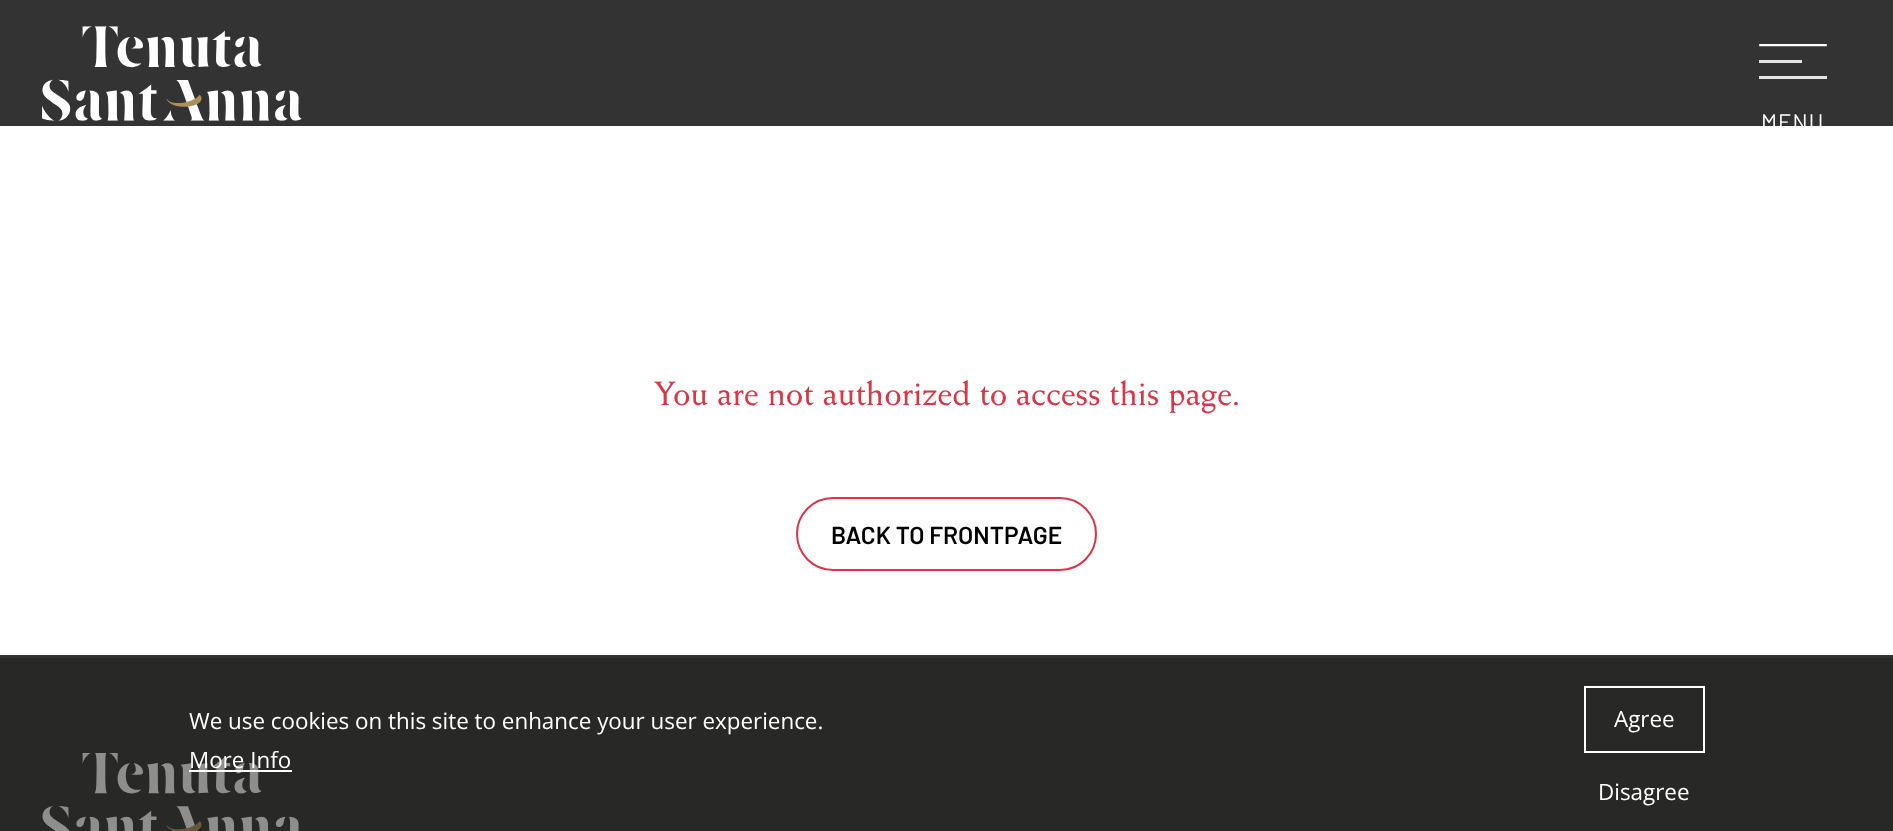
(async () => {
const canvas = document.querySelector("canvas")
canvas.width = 1893
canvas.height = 831
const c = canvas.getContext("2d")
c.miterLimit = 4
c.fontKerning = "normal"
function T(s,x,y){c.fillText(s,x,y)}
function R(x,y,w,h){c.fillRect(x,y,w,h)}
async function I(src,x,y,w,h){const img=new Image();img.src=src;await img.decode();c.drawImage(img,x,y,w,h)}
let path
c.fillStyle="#fff"
R(0,0,1893,831)
c.fillStyle="#333"
R(0,0,1893,126)
await I("1.png",42,26,260,95)
c.fillStyle="#e4e4e4"
R(1759,60,43,3)
R(1759,76,68,3)
c.save()
c.beginPath()
c.rect(1759,44,68,35)
c.clip()
path = new Path2D("M1760.5 45h65")
c.strokeStyle="#fff"
c.lineWidth=2.6
c.lineCap="square"
c.stroke(path)
c.restore()
c.letterSpacing="1px"
c.font="22.4px Barlow"
c.fillStyle="#fff"
T("MENU",1761,130)
c.letterSpacing="0px"
c.font="35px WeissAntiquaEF"
c.fillStyle="#dc3545"
T("You are not authorized to access this page.",654,405)
c.beginPath()
c.roundRect(797,498,299,72,36)
c.strokeStyle="#dc3545"
c.lineWidth=2
c.stroke()
c.font="600 24.5px Barlow"
c.fillStyle="#000"
T("BACK TO FRONTPAGE",831,544)
c.fillStyle="#333"
R(0,655,1893,3)
c.fillStyle="#282827"
R(0,658,1893,173)
await I("2.png",42,753,257,78)
c.font="22.4px Open Sans"
c.fillStyle="#fff"
T("We use cookies on this site to enhance your user experience.",189,729)
T("More Info",189,768)
R(189,770,103,2)
c.strokeStyle="#fff"
c.strokeRect(1585,687,119,65)
T("Agree",1614,727)
T("Disagree",1598,800)
})()
